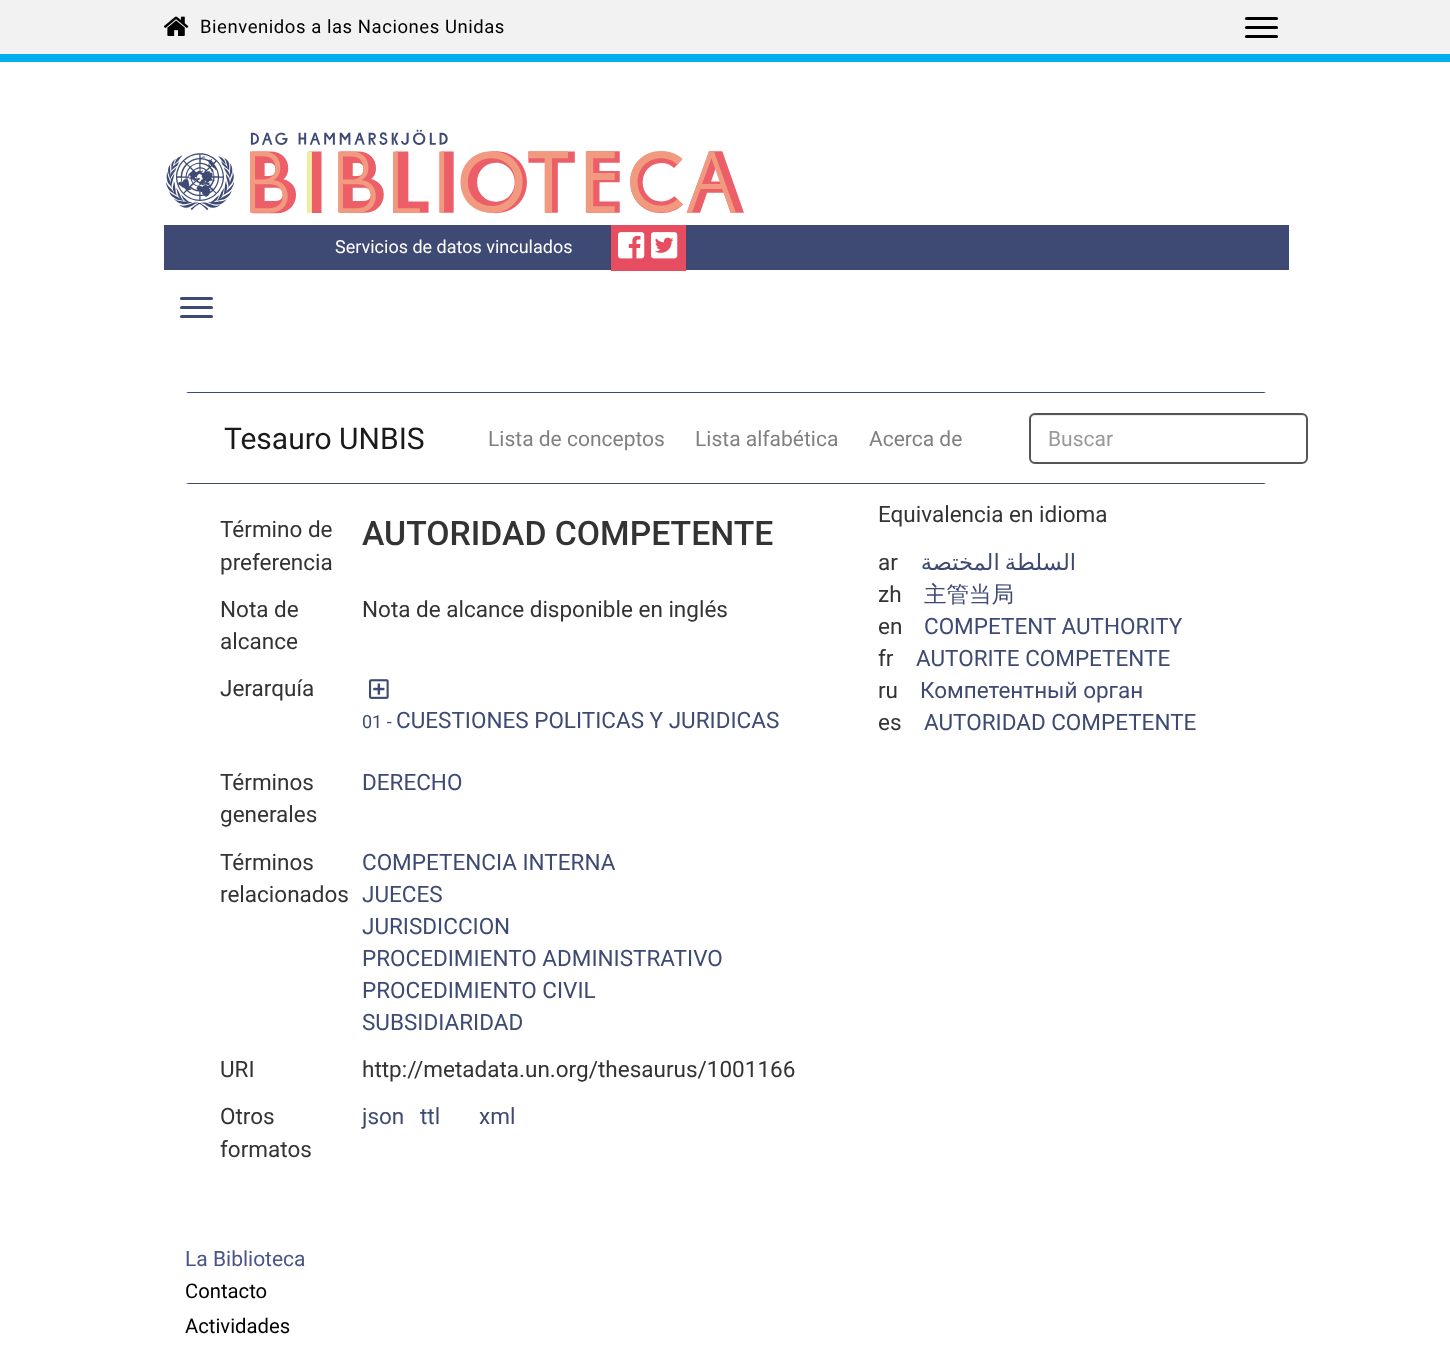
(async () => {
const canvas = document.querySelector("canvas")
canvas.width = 1450
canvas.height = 1347
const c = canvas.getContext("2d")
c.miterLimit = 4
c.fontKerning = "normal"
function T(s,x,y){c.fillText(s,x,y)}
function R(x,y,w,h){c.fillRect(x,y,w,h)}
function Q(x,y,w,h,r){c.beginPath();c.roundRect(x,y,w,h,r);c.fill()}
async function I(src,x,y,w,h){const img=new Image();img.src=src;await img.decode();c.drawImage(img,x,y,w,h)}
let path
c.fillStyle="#fff"
R(0,0,1450,1347)
c.fillStyle="#f2f2f2"
R(0,0,1450,54)
c.fillStyle="#00adef"
R(0,54,1450,8)
await I("1.png",163,16,26,20)
c.letterSpacing="0.55px"
c.font="18.5px Roboto"
c.fillStyle="#000"
T("Bienvenidos a las Naciones Unidas",200,33)
Q(1245,17,33,3,1.5)
Q(1245,26,33,3,1.5)
Q(1245,35,33,3,1.5)
await I("2.png",166,129,578,85)
c.fillStyle="#3f4a74"
R(164,225,1125,45)
c.letterSpacing="0px"
c.font="18px Roboto"
c.fillStyle="#fff"
T("Servicios de datos vinculados",335,253)
c.fillStyle="#e64d61"
R(611,225,75,46)
await I("3.png",618,232,27,27)
await I("4.png",651,232,27,27)
c.fillStyle="#3f4a74"
Q(180,297,33,3,1.5)
Q(180,306,33,3,1.5)
Q(180,315,33,3,1.5)
c.fillStyle="#3e4a73"
path = new Path2D("M186 392h1080l-2 1h-1076z")
c.fill(path)
path = new Path2D("M1266 484h-1080l2-1h1076z")
c.fill(path)
c.font="30px Roboto"
c.fillStyle="#1a1a1a"
T("Tesauro UNBIS",224,449)
c.font="21px Roboto"
c.fillStyle="#808080"
T("Lista de conceptos",488,446)
T("Lista alfabética",695,446)
T("Acerca de",869,446)
c.beginPath()
c.roundRect(1030,414,102,49,5)
c.strokeStyle="#ccc"
c.lineWidth=2
c.stroke()
c.fillStyle="#fff"
Q(1029,413,279,51,6)
c.fillStyle="#ececec"
path = new Path2D("M1035 416h267c2 0 4 2 4 4v40c1-1 1-2 1-3v-38c0-3-2-5-5-5h-266c-2 0-4 2-5 4c1-1 3-2 4-2z")
c.fill(path)
c.beginPath()
c.roundRect(1030,414,277,49,5)
c.strokeStyle="#555"
c.stroke()
c.fillStyle="#999"
T("Buscar",1048,446)
c.font="22.5px Roboto"
c.fillStyle="#333"
T("Término de",220,537)
T("preferencia",220,570)
c.font="500 33.75px Roboto"
T("AUTORIDAD COMPETENTE",362,545)
c.font="22.5px Roboto"
T("Nota de",220,617)
T("alcance",220,649)
T("Nota de alcance disponible en inglés",362,617)
T("Jerarquía",220,696)
await I("5.png",369,679,20,20)
c.font="18px Roboto"
c.fillStyle="#3e4a73"
T("01 -",362,728)
c.font="22.5px Roboto"
T("CUESTIONES POLITICAS Y JURIDICAS",396,728)
c.fillStyle="#333"
T("Términos",220,790)
T("generales",220,822)
c.fillStyle="#3e4a73"
T("DERECHO",362,790)
c.fillStyle="#333"
T("Términos",220,870)
T("relacionados",220,902)
c.fillStyle="#3e4a73"
T("COMPETENCIA INTERNA",362,870)
T("JUECES",362,902)
T("JURISDICCION",362,934)
T("PROCEDIMIENTO ADMINISTRATIVO",362,966)
T("PROCEDIMIENTO CIVIL",362,998)
T("SUBSIDIARIDAD",362,1030)
c.fillStyle="#333"
T("URI",220,1077)
T("http://metadata.un.org/thesaurus/1001166",362,1077)
T("Otros",220,1124)
T("formatos",220,1157)
c.fillStyle="#3e4a73"
T("json",362,1124)
T("ttl",420,1124)
T("xml",479,1124)
c.fillStyle="#333"
T("Equivalencia en idioma",878,522)
T("ar",878,570)
c.wordSpacing="-2px"
c.direction="rtl"
c.font="22.5px DejaVu Sans"
c.fillStyle="#3e4a73"
T("السلطة المختصة",1076,570)
c.wordSpacing="0px"
c.direction="ltr"
c.font="22.5px Roboto"
c.fillStyle="#333"
T("zh",878,602)
c.font="500 22.5px WenQuanYi Zen Hei"
c.fillStyle="#3e4a73"
T("主管当局",924,602)
c.font="22.5px Roboto"
c.fillStyle="#333"
T("en",878,634)
c.fillStyle="#3e4a73"
T("COMPETENT AUTHORITY",924,634)
c.fillStyle="#333"
T("fr",878,666)
c.fillStyle="#3e4a73"
T("AUTORITE COMPETENTE",916,666)
c.fillStyle="#333"
T("ru",878,698)
c.fillStyle="#3e4a73"
T("Компетентный орган",920,698)
c.fillStyle="#333"
T("es",878,730)
c.fillStyle="#3e4a73"
T("AUTORIDAD COMPETENTE",924,730)
c.font="21px Roboto"
c.fillStyle="#495587"
T("La Biblioteca",185,1266)
c.font="20.25px Roboto"
c.fillStyle="#000"
T("Contacto",185,1298)
T("Actividades",185,1333)
})()
